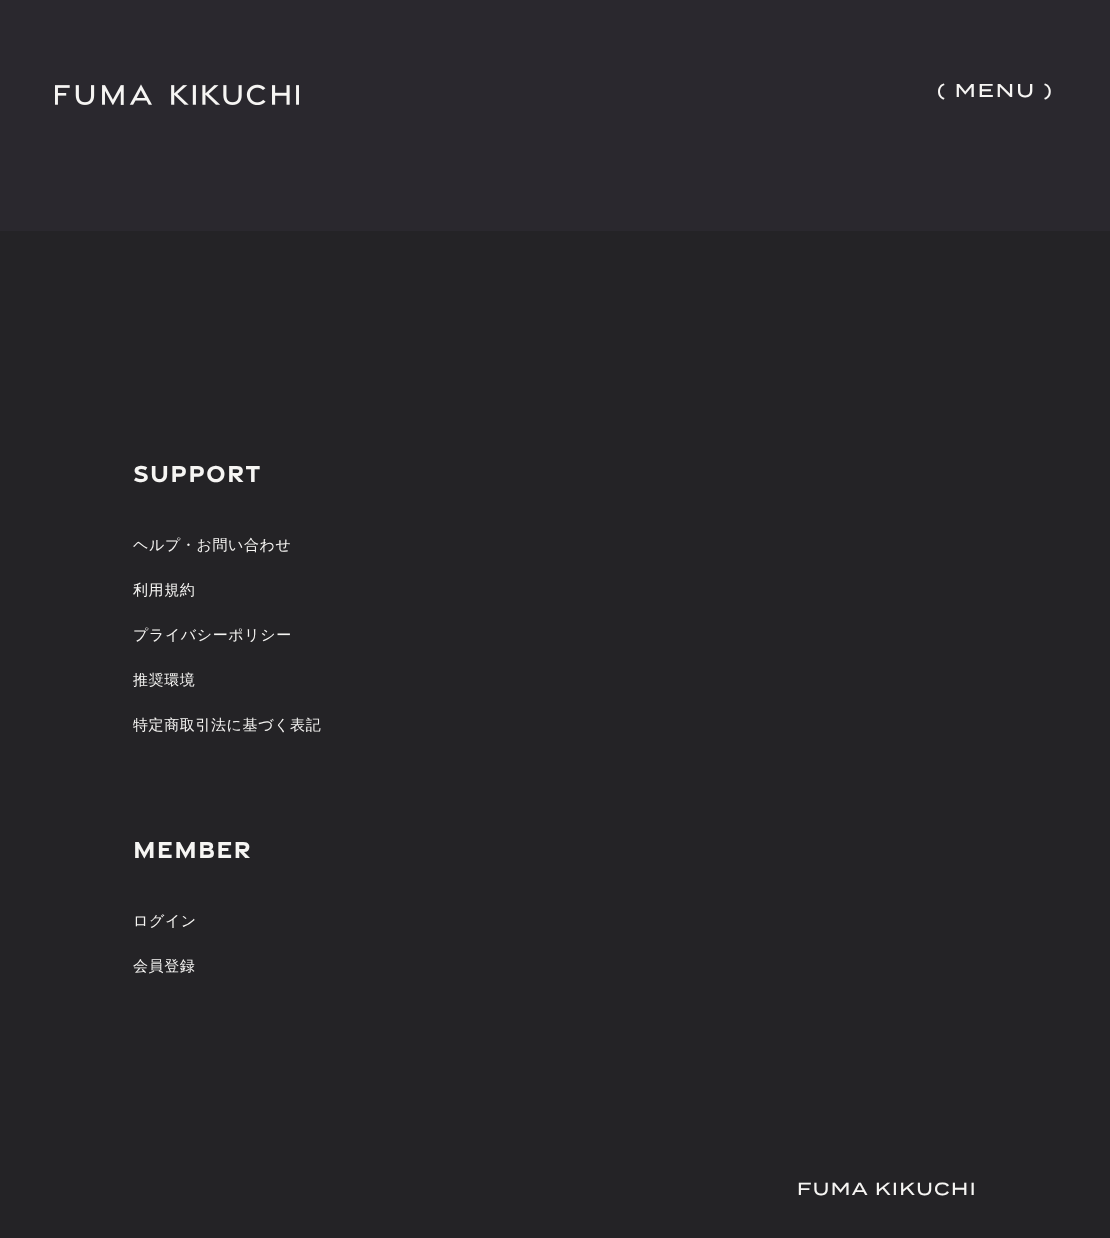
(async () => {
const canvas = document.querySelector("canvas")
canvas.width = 1110
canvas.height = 1238
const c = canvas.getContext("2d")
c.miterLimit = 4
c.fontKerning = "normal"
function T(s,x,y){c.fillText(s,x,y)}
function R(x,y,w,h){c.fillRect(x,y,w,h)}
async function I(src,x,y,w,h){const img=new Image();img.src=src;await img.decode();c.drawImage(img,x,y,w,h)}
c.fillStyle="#2a282e"
R(0,0,1110,1238)
await I("1.png",55,84,244,21)
c.letterSpacing="2px"
c.font="500 18.75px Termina"
c.fillStyle="#f6f5f3"
T("( MENU )",937,97)
c.fillStyle="#242326"
R(0,231,1110,1007)
c.letterSpacing="1.25px"
c.font="bold 25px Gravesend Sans"
c.fillStyle="#f6f5f3"
T("SUPPORT",133,482)
c.letterSpacing="0.6px"
c.font="500 15px WenQuanYi Zen Hei"
T("ヘルプ・お問い合わせ",133,550)
T("利用規約",133,595)
T("プライバシーポリシー",133,640)
T("推奨環境",133,685)
T("特定商取引法に基づく表記",133,730)
c.letterSpacing="1.25px"
c.font="bold 25px Gravesend Sans"
T("MEMBER",133,858)
c.letterSpacing="0.6px"
c.font="500 15px WenQuanYi Zen Hei"
T("ログイン",133,926)
T("会員登録",133,971)
c.letterSpacing="1.4px"
c.font="500 17.5px Termina"
T("FUMA KIKUCHI",797,1195)
})()
